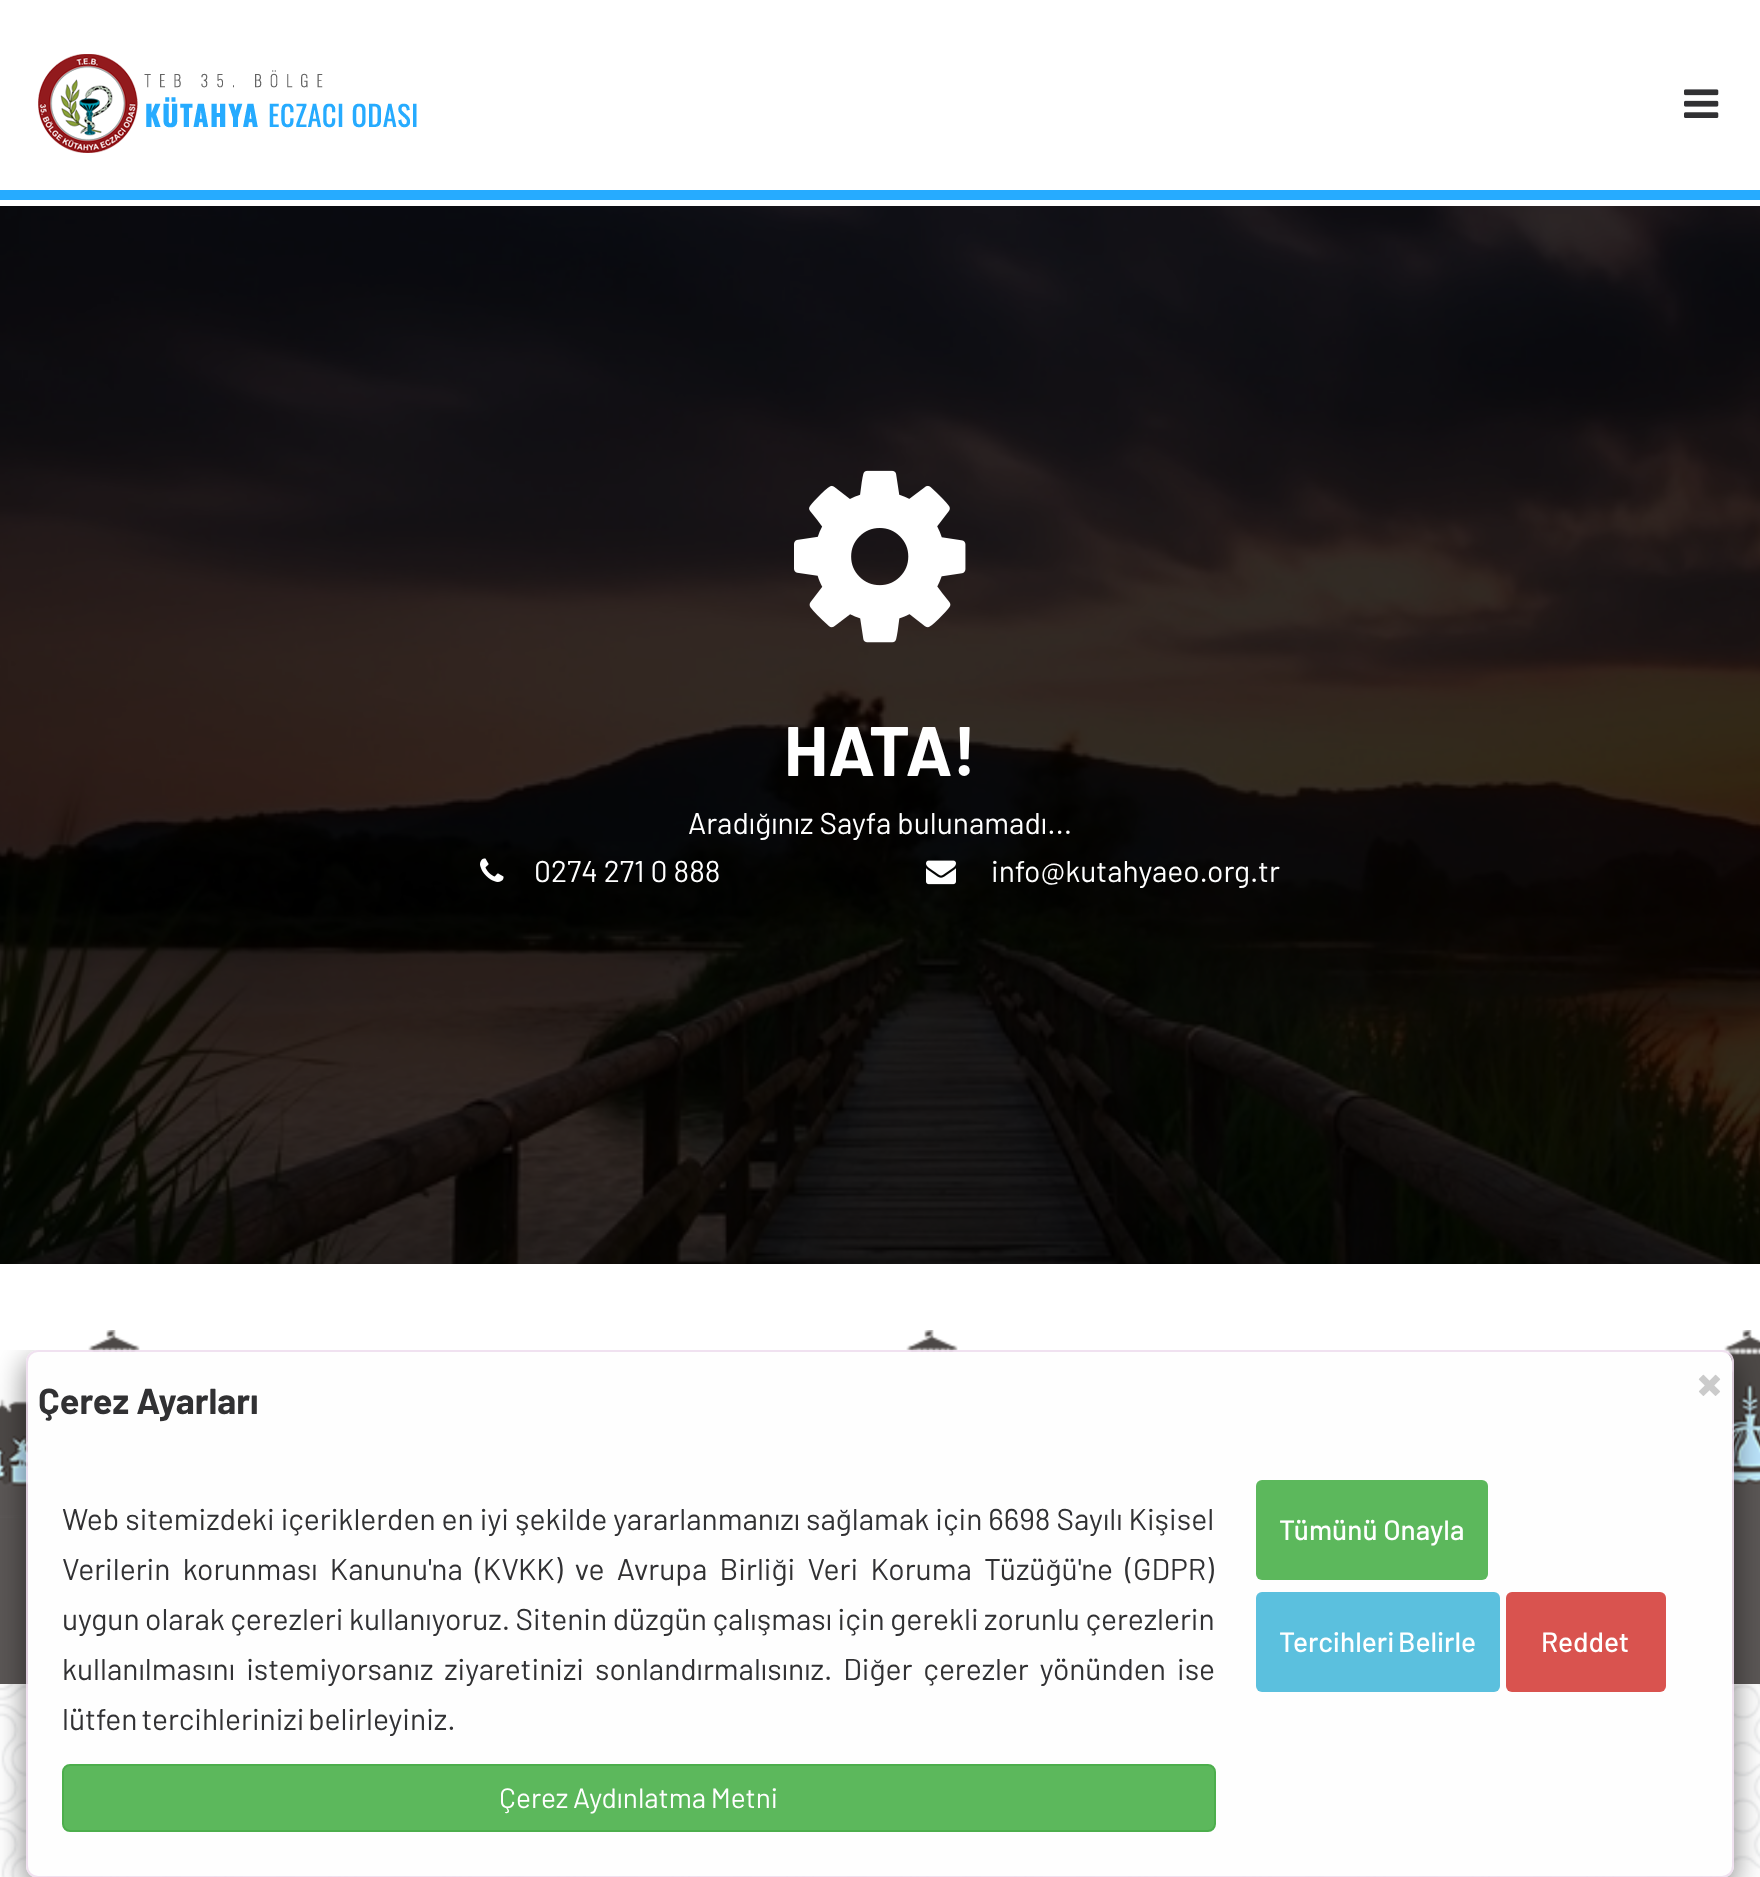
(async () => {
const canvas = document.querySelector("canvas")
canvas.width = 1760
canvas.height = 1877
const c = canvas.getContext("2d")
c.miterLimit = 4
c.fontKerning = "normal"
function T(s,x,y){c.fillText(s,x,y)}
function R(x,y,w,h){c.fillRect(x,y,w,h)}
function Q(x,y,w,h,r){c.beginPath();c.roundRect(x,y,w,h,r);c.fill()}
async function I(src,x,y,w,h){const img=new Image();img.src=src;await img.decode();c.drawImage(img,x,y,w,h)}
let path
c.fillStyle="#fff"
R(0,0,1760,1877)
await I("1.png",0,1684,1760,193)
c.fillStyle="#26abff"
R(0,190,1760,10)
await I("2.png",38,54,379,99)
await I("3.png",1684,89,35,29)
await I("4.png",0,206,1760,1058)
await I("5.png",794,470,172,173)
c.font="bold 70px Barlow"
c.fillStyle="#fff"
T("HATA!",784,776)
c.font="30px Barlow"
T("Aradığınız Sayfa bulunamadı...",688,834)
await I("6.png",480,858,24,24)
T("0274 271 0 888",534,882)
await I("7.png",926,860,30,25)
T("info@kutahyaeo.org.tr",991,882)
await I("8.png",0,1330,1760,188)
c.fillStyle="#5b5756"
R(0,1518,1760,166)
c.save()
c.beginPath()
c.rect(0,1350,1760,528)
c.clip()
path = new Path2D("M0 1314h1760v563h-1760zm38 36h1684c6.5 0 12 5.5 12 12v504c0 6.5-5.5 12-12 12h-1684c-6.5 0-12-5.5-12-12v-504c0-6.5 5.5-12 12-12z")
c.clip(path,"evenodd")
c.fillStyle="#00000080"
c.filter="blur(15px)"
c.beginPath()
c.roundRect(26,1360,1708,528,12)
c.fill()
c.filter="none"
c.restore()
c.fillStyle="#fefefe"
Q(28,1352,1704,524,10)
c.beginPath()
c.roundRect(27,1351,1706,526,11)
c.strokeStyle="#eeddeede"
c.lineWidth=2
c.stroke()
c.font="bold 56px Barlow"
c.fillStyle="#cbcbcb"
T("×",1697,1403)
c.font="bold 36px Barlow"
c.fillStyle="#313133"
T("Çerez Ayarları",38,1414)
c.font="30px Barlow"
T("Web sitemizdeki içeriklerden en iyi şekilde yararlanmanızı sağlamak için 6698 Sayılı Kişisel",62,1530)
c.wordSpacing="6.25px"
T("Verilerin korunması Kanunu'na (KVKK) ve Avrupa Birliği Veri Koruma Tüzüğü'ne (GDPR)",62,1580)
c.wordSpacing="-0.5px"
T("uygun olarak çerezleri kullanıyoruz. Sitenin düzgün çalışması için gerekli zorunlu çerezlerin",62,1630)
c.wordSpacing="5px"
T("kullanılmasını istemiyorsanız ziyaretinizi sonlandırmalısınız. Diğer çerezler yönünden ise",62,1680)
c.wordSpacing="-2px"
T("lütfen tercihlerinizi belirleyiniz.",62,1730)
c.fillStyle="#5cb85c"
c.beginPath()
c.roundRect(63,1765,1152,66,7)
c.fill()
c.strokeStyle="#4cae4c"
c.stroke()
c.wordSpacing="-1px"
c.font="28px Barlow"
c.fillStyle="#fff"
T("Çerez Aydınlatma Metni",499,1808)
c.fillStyle="#5cb85c"
Q(1256,1480,232,100,6)
c.wordSpacing="0px"
c.font="500 28px Barlow"
c.fillStyle="#fff"
T("Tümünü Onayla",1279,1540)
c.fillStyle="#5bc0de"
Q(1256,1592,244,100,6)
c.wordSpacing="-2px"
c.fillStyle="#fff"
T("Tercihleri Belirle",1279,1652)
c.fillStyle="#d9534f"
Q(1506,1592,160,100,6)
c.wordSpacing="0px"
c.fillStyle="#fff"
T("Reddet",1541,1652)
})()
